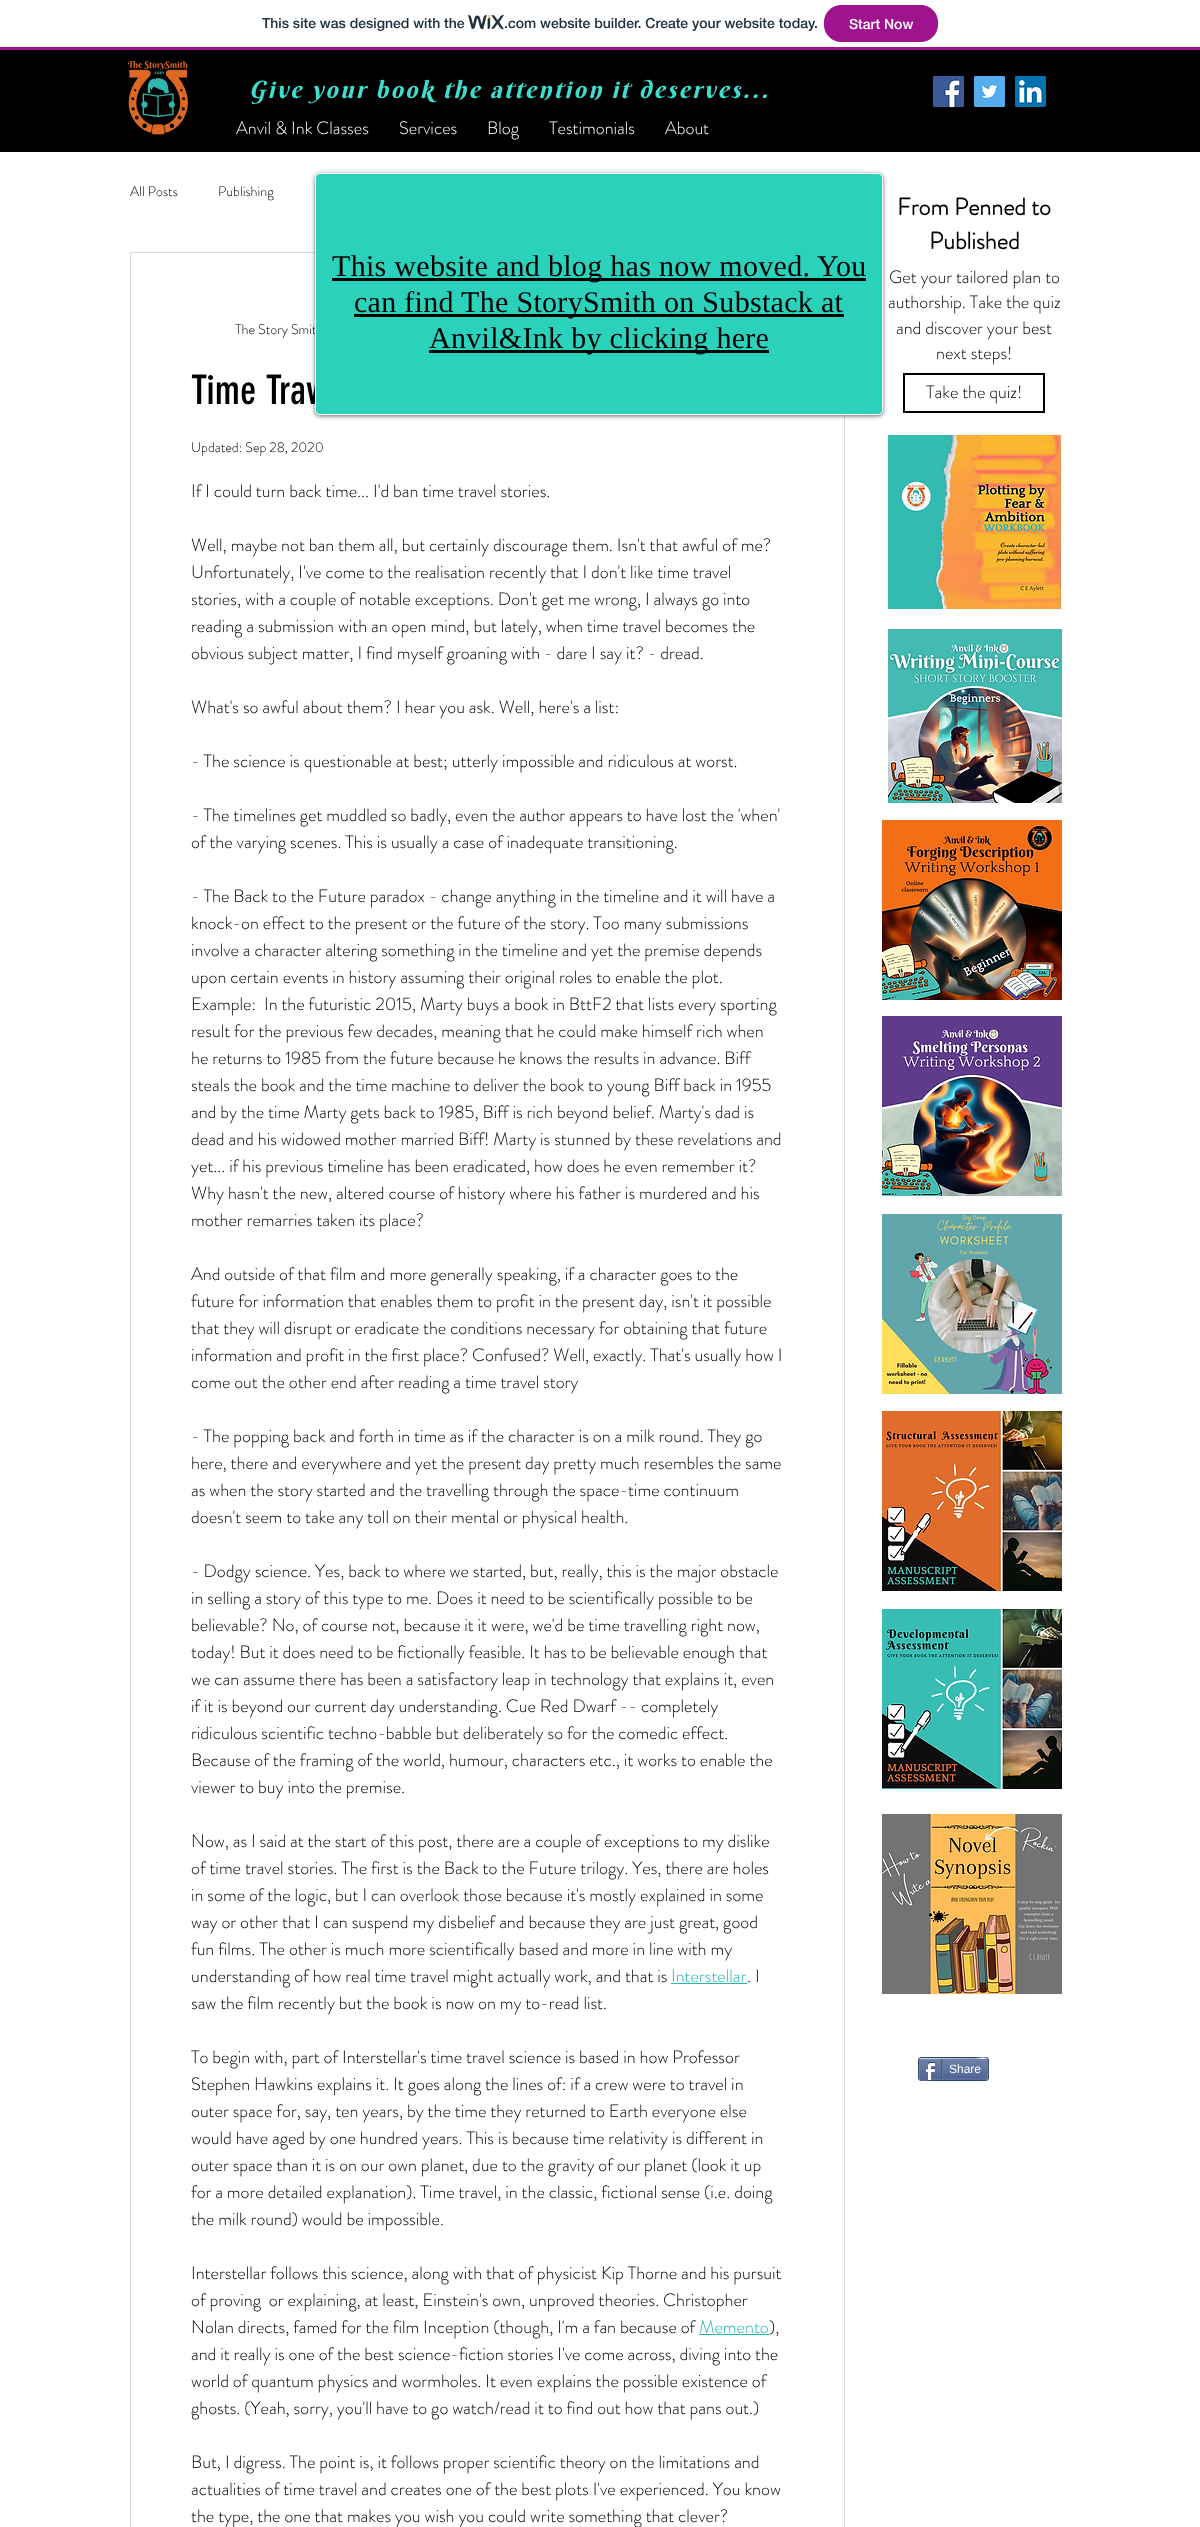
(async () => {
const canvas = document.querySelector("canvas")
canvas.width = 1200
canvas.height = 2527
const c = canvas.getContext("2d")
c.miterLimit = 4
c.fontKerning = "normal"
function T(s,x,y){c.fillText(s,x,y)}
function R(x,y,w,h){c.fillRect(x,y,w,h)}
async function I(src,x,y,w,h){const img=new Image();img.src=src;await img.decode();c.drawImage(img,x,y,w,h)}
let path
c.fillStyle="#fff"
R(0,0,1200,2527)
c.fillStyle="#a0138e"
R(0,47,1200,3)
c.font="500 14px 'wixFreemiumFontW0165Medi'"
c.fillStyle="#20303c"
T("This site was designed with the",262,28)
await I("1.png",468,15,36,15)
T(".com website builder. Create your website today.",504,28)
c.fillStyle="#a0138e"
c.beginPath()
c.roundRect(824.5,5.5,113,36,16.5)
c.fill()
c.strokeStyle="#a0138e"
c.stroke()
c.fillStyle="#fff"
T("Start Now",849,29)
c.fillStyle="#000"
R(0,50,1200,102)
await I("2.png",127,60,61,75)
c.letterSpacing="2.4px"
c.font="italic 24px Berkshire Swash"
c.fillStyle="#3edece"
T("Give your book the attention it deserves...",249,98)
await I("3.png",933,76,31,31)
await I("4.png",974,76,31,31)
await I("5.png",1015,76,31,31)
c.letterSpacing="0px"
c.font="300 18px 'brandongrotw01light'"
c.fillStyle="#fff"
T("Anvil & Ink Classes",236,134)
T("Services",399,134)
T("Blog",487,134)
T("Testimonials",549,134)
T("About",665,134)
c.font="300 14px 'brandongrotw01light'"
c.fillStyle="#000"
T("All Posts",130,196)
T("Publishing",218,196)
c.strokeStyle="#d9d9d9"
c.strokeRect(130.5,252.5,714,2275)
T("The Story Smit",235,334)
c.font="40px 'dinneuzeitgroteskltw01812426'"
T("Time Trav",191,404)
c.font="300 14px 'brandongrotw01light'"
T("Updated: Sep 28, 2020",191,452)
c.font="300 18px 'brandongrotw01light'"
T("If I could turn back time... I'd ban time travel stories.",191,497)
T("Well, maybe not ban them all, but certainly discourage them. Isn't that awful of me?",191,551)
T("Unfortunately, I've come to the realisation recently that I don't like time travel",191,578)
T("stories, with a couple of notable exceptions. Don't get me wrong, I always go into",191,605)
T("reading a submission with an open mind, but lately, when time travel becomes the",191,632)
T("obvious subject matter, I find myself groaning with - dare I say it? - dread.",191,659)
T("What's so awful about them? I hear you ask. Well, here's a list:",191,713)
T("- The science is questionable at best; utterly impossible and ridiculous at worst.",191,767)
T("- The timelines get muddled so badly, even the author appears to have lost the 'when'",191,821)
T("of the varying scenes. This is usually a case of inadequate transitioning.",191,848)
T("- The Back to the Future paradox - change anything in the timeline and it will have a",191,902)
T("knock-on effect to the present or the future of the story. Too many submissions",191,929)
T("involve a character altering something in the timeline and yet the premise depends",191,956)
T("upon certain events in history assuming their original roles to enable the plot.",191,983)
T("Example:  In the futuristic 2015, Marty buys a book in BttF2 that lists every sporting",191,1010)
T("result for the previous few decades, meaning that he could make himself rich when",191,1037)
T("he returns to 1985 from the future because he knows the results in advance. Biff",191,1064)
T("steals the book and the time machine to deliver the book to young Biff back in 1955",191,1091)
T("and by the time Marty gets back to 1985, Biff is rich beyond belief. Marty's dad is",191,1118)
T("dead and his widowed mother married Biff! Marty is stunned by these revelations and",191,1145)
T("yet... if his previous timeline has been eradicated, how does he even remember it?",191,1172)
T("Why hasn't the new, altered course of history where his father is murdered and his",191,1199)
T("mother remarries taken its place?",191,1226)
T("And outside of that film and more generally speaking, if a character goes to the",191,1280)
T("future for information that enables them to profit in the present day, isn't it possible",191,1307)
T("that they will disrupt or eradicate the conditions necessary for obtaining that future",191,1334)
T("information and profit in the first place? Confused? Well, exactly. That's usually how I",191,1361)
T("come out the other end after reading a time travel story",191,1388)
T("- The popping back and forth in time as if the character is on a milk round. They go",191,1442)
T("here, there and everywhere and yet the present day pretty much resembles the same",191,1469)
T("as when the story started and the travelling through the space-time continuum",191,1496)
T("doesn't seem to take any toll on their mental or physical health.",191,1523)
T("- Dodgy science. Yes, back to where we started, but, really, this is the major obstacle",191,1577)
T("in selling a story of this type to me. Does it need to be scientifically possible to be",191,1604)
T("believable? No, of course not, because it it were, we'd be time travelling right now,",191,1631)
T("today! But it does need to be fictionally feasible. It has to be believable enough that",191,1658)
T("we can assume there has been a satisfactory leap in technology that explains it, even",191,1685)
T("if it is beyond our current day understanding. Cue Red Dwarf -- completely",191,1712)
T("ridiculous scientific techno-babble but deliberately so for the comedic effect.",191,1739)
T("Because of the framing of the world, humour, characters etc., it works to enable the",191,1766)
T("viewer to buy into the premise.",191,1793)
T("Now, as I said at the start of this post, there are a couple of exceptions to my dislike",191,1847)
T("of time travel stories. The first is the Back to the Future trilogy. Yes, there are holes",191,1874)
T("in some of the logic, but I can overlook those because it's mostly explained in some",191,1901)
T("way or other that I can suspend my disbelief and because they are just great, good",191,1928)
T("fun films. The other is much more scientifically based and more in line with my",191,1955)
T("understanding of how real time travel might actually work, and that is",191,1982)
c.fillStyle="#25b8a9"
T("Interstellar",671,1982)
R(671,1983,76,1)
c.fillStyle="#000"
T(". I",747,1982)
T("saw the film recently but the book is now on my to-read list.",191,2009)
T("To begin with, part of Interstellar's time travel science is based in how Professor",191,2063)
T("Stephen Hawkins explains it. It goes along the lines of: if a crew were to travel in",191,2090)
T("outer space for, say, ten years, by the time they returned to Earth everyone else",191,2117)
T("would have aged by one hundred years. This is because time relativity is different in",191,2144)
T("outer space than it is on our own planet, due to the gravity of our planet (look it up",191,2171)
T("for a more detailed explanation). Time travel, in the classic, fictional sense (i.e. doing",191,2198)
T("the milk round) would be impossible.",191,2225)
T("Interstellar follows this science, along with that of physicist Kip Thorne and his pursuit",191,2279)
T("of proving  or explaining, at least, Einstein's own, unproved theories. Christopher",191,2306)
T("Nolan directs, famed for the film Inception (though, I'm a fan because of",191,2333)
c.fillStyle="#25b8a9"
T("Memento",699,2333)
R(699,2334,70,1)
c.fillStyle="#000"
T("),",769,2333)
T("and it really is one of the best science-fiction stories I've come across, diving into the",191,2360)
T("world of quantum physics and wormholes. It even explains the possible existence of",191,2387)
T("ghosts. (Yeah, sorry, you'll have to go watch/read it to find out how that pans out.)",191,2414)
T("But, I digress. The point is, it follows proper scientific theory on the limitations and",191,2468)
T("actualities of time travel and creates one of the best plots I've experienced. You know",191,2495)
T("the type, the one that makes you wish you could write something that clever?",191,2522)
c.font="bold 24px 'brandongrotw01light'"
T("From Penned to",897,215)
T("Published",929,249)
c.font="300 18px 'brandongrotw01light'"
T("Get your tailored plan to",889,283)
T("authorship. Take the quiz",888,308)
T("and discover your best",896,334)
T("next steps!",936,359)
c.strokeStyle="#000"
c.lineWidth=2
c.strokeRect(904,374,140,38)
T("Take the quiz!",926,398)
await I("6.png",888,435,174,174)
await I("7.png",888,629,174,174)
await I("8.png",882,820,180,180)
await I("9.png",882,1016,180,180)
await I("10.png",882,1214,180,180)
await I("11.png",882,1411,180,180)
await I("12.png",882,1609,180,180)
await I("13.png",882,1814,180,180)
c.beginPath()
c.roundRect(918.5,2057.5,70,23,2.5)
c.strokeStyle="#2d4565"
c.lineWidth=1
c.stroke()
await I("14.png",919,2059,69,21)
path = new Path2D("M920 2059l55-.5c4 0 9-2.5 12 .5")
c.strokeStyle="#9aabc6"
c.stroke(path)
path = new Path2D("M987 2059c1 .5 1 19.5 0 20")
c.strokeStyle="#6f83ad"
c.stroke(path)
path = new Path2D("M987 2079l-55 .5c-4 0-9 2.5-12-.5")
c.strokeStyle="#6176a3"
c.stroke(path)
path = new Path2D("M920 2079c-1-.5-1-19.5 0-20")
c.strokeStyle="#6f83ad"
c.stroke(path)
await I("15.png",925,2062,10,18)
c.fillStyle="#425e85"
R(941,2059,1,21)
c.font="12px Liberation Sans"
c.fillStyle="#fff"
T("Share",949,2073)
c.fillStyle="#6176a3"
R(942,2059,1,20)
c.fillStyle="#00000099"
c.filter="blur(2px)"
c.beginPath()
c.roundRect(315,174,568,242,5)
c.fill()
c.filter="none"
c.fillStyle="#2ad1bb"
c.beginPath()
c.roundRect(315.5,173.5,567,241,4.5)
c.fill()
c.strokeStyle="#fff"
c.stroke()
c.fillStyle="#000"
R(332,278,534,3)
c.letterSpacing="0.3px"
c.font="30px Liberation Serif"
T("This website and blog has now moved. You",332,276)
R(354,314,490,3)
T("can find The StorySmith on Substack at",354,312)
R(429,350,340,3)
T("Anvil&Ink by clicking here",429,348)
})()
